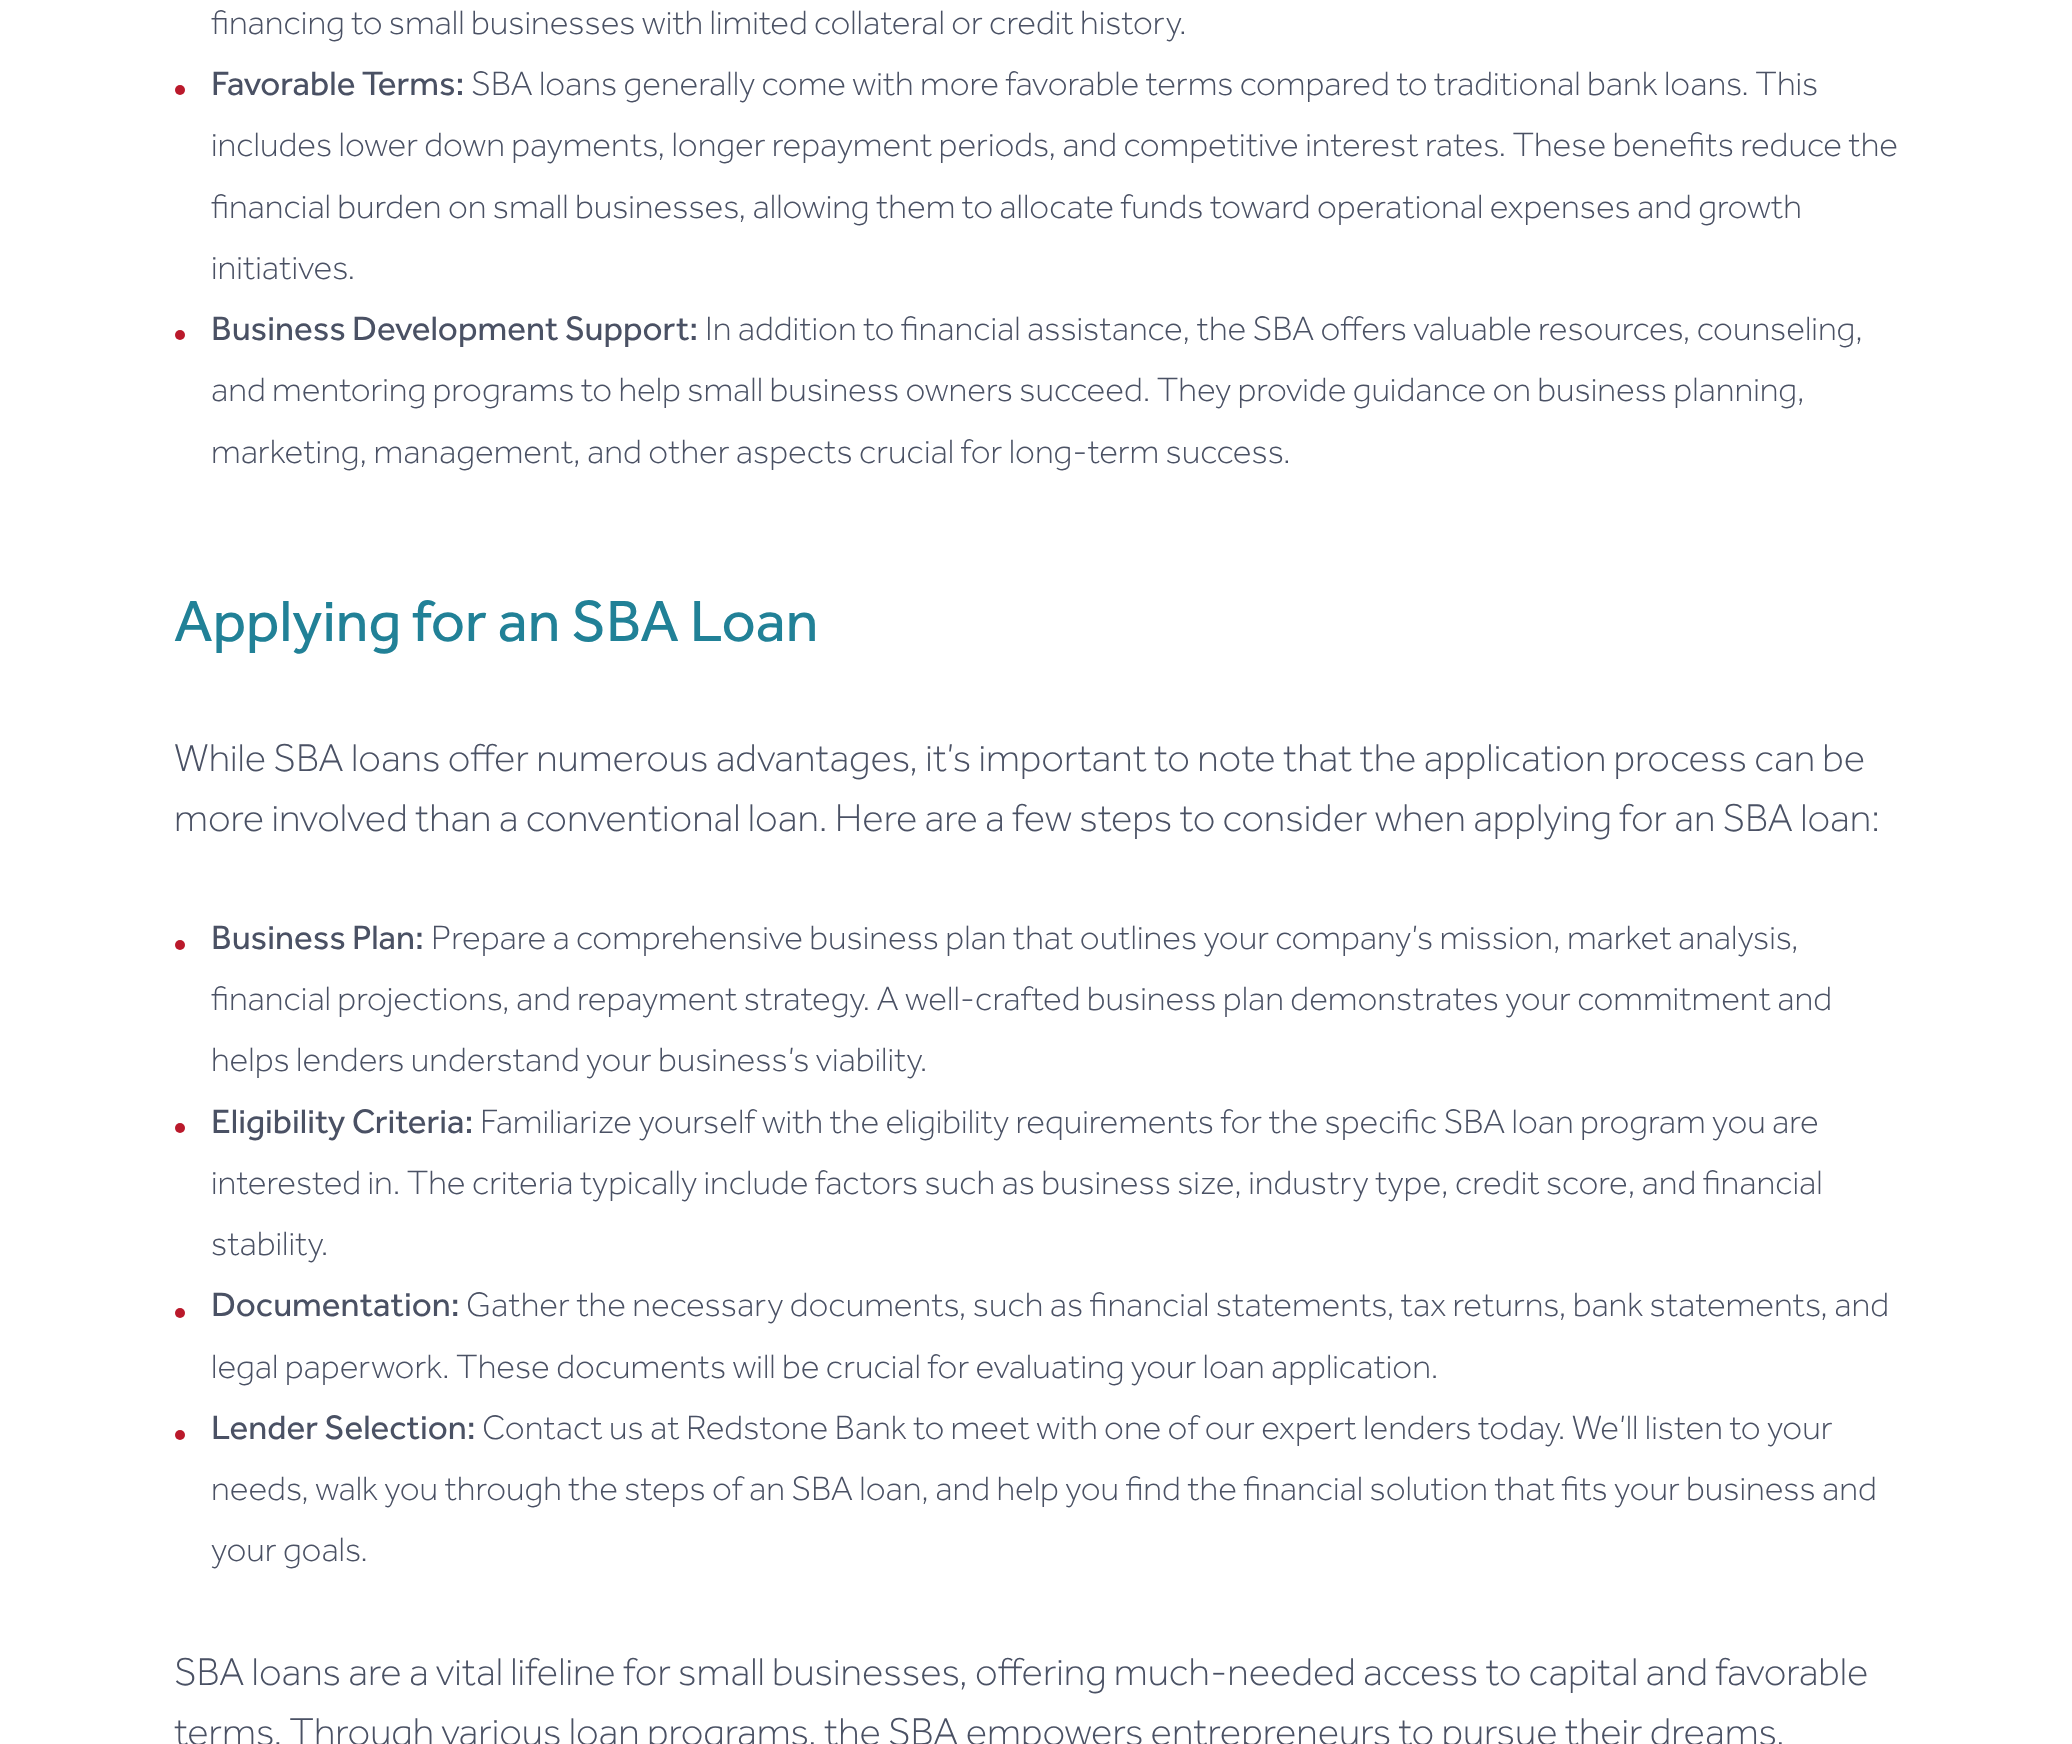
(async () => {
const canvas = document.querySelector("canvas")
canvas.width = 2072
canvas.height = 1744
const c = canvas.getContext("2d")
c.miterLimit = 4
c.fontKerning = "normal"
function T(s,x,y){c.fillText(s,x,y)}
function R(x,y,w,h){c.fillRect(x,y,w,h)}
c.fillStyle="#fff"
R(0,0,2072,1744)
c.font="300 35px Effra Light"
c.fillStyle="#4a5164"
T("financing to small businesses with limited collateral or credit history.",211,34)
c.fillStyle="#ba192b"
c.beginPath()
c.arc(180,90,5,0,7)
c.fill()
c.font="35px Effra"
c.fillStyle="#4a5164"
T("Favorable Terms:",211,95)
c.font="300 35px Effra Light"
T("SBA loans generally come with more favorable terms compared to traditional bank loans. This",471,95)
T("includes lower down payments, longer repayment periods, and competitive interest rates. These benefits reduce the",211,156)
T("financial burden on small businesses, allowing them to allocate funds toward operational expenses and growth",211,218)
T("initiatives.",211,279)
c.fillStyle="#ba192b"
c.beginPath()
c.arc(180,335,5,0,7)
c.fill()
c.font="35px Effra"
c.fillStyle="#4a5164"
T("Business Development Support:",211,340)
c.font="300 35px Effra Light"
T("In addition to financial assistance, the SBA offers valuable resources, counseling,",705,340)
T("and mentoring programs to help small business owners succeed. They provide guidance on business planning,",211,401)
T("marketing, management, and other aspects crucial for long-term success.",211,463)
c.font="60px Effra"
c.fillStyle="#218197"
T("Applying for an SBA Loan",174,641)
c.font="300 40px Effra Light"
c.fillStyle="#4a5164"
T("While SBA loans offer numerous advantages, it’s important to note that the application process can be",174,771)
T("more involved than a conventional loan. Here are a few steps to consider when applying for an SBA loan:",174,831)
c.fillStyle="#ba192b"
c.beginPath()
c.arc(180,945,5,0,7)
c.fill()
c.font="35px Effra"
c.fillStyle="#4a5164"
T("Business Plan:",211,949)
c.font="300 35px Effra Light"
T("Prepare a comprehensive business plan that outlines your company’s mission, market analysis,",431,949)
T("financial projections, and repayment strategy. A well-crafted business plan demonstrates your commitment and",211,1010)
T("helps lenders understand your business’s viability.",211,1071)
c.fillStyle="#ba192b"
c.beginPath()
c.arc(180,1128,5,0,7)
c.fill()
c.font="35px Effra"
c.fillStyle="#4a5164"
T("Eligibility Criteria:",211,1133)
c.font="300 35px Effra Light"
T("Familiarize yourself with the eligibility requirements for the specific SBA loan program you are",480,1133)
T("interested in. The criteria typically include factors such as business size, industry type, credit score, and financial",211,1194)
T("stability.",211,1255)
c.fillStyle="#ba192b"
c.beginPath()
c.arc(180,1313,5,0,7)
c.fill()
c.font="35px Effra"
c.fillStyle="#4a5164"
T("Documentation:",211,1316)
c.font="300 35px Effra Light"
T("Gather the necessary documents, such as financial statements, tax returns, bank statements, and",466,1316)
T("legal paperwork. These documents will be crucial for evaluating your loan application.",211,1378)
c.fillStyle="#ba192b"
c.beginPath()
c.arc(180,1435,5,0,7)
c.fill()
c.font="35px Effra"
c.fillStyle="#4a5164"
T("Lender Selection:",211,1439)
c.font="300 35px Effra Light"
T("Contact us at Redstone Bank to meet with one of our expert lenders today. We’ll listen to your",482,1439)
T("needs, walk you through the steps of an SBA loan, and help you find the financial solution that fits your business and",211,1500)
T("your goals.",211,1561)
c.font="300 40px Effra Light"
T("SBA loans are a vital lifeline for small businesses, offering much-needed access to capital and favorable",174,1685)
T("terms. Through various loan programs, the SBA empowers entrepreneurs to pursue their dreams,",174,1745)
})()
